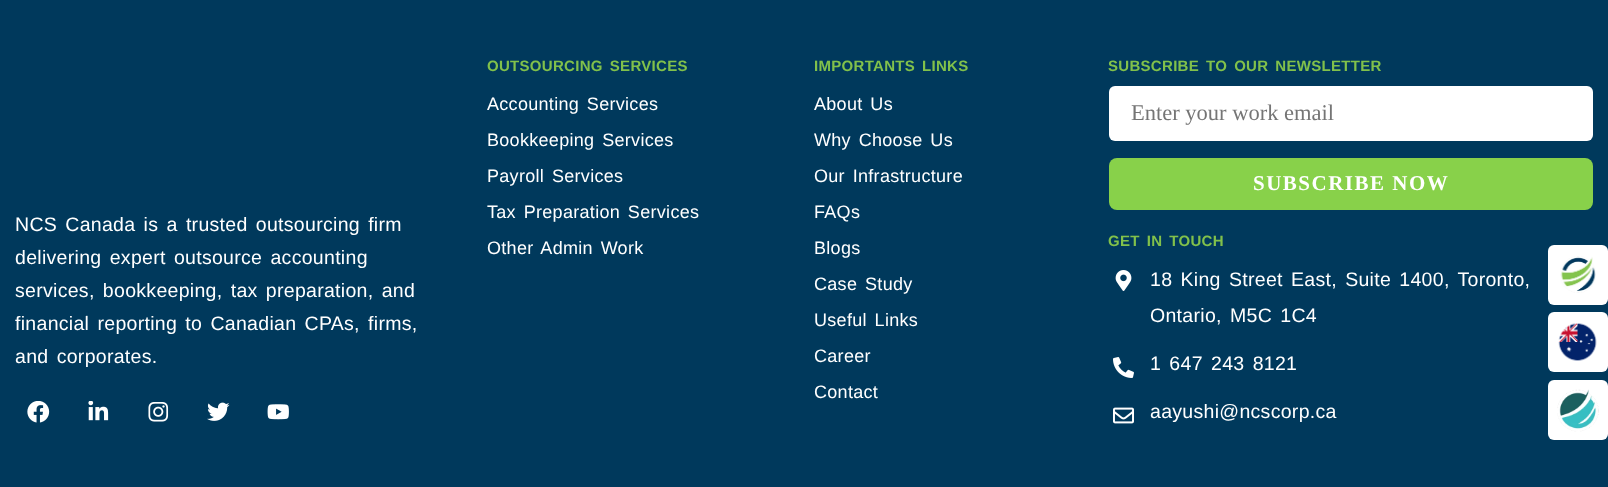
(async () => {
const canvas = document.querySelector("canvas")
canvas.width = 1608
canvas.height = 487
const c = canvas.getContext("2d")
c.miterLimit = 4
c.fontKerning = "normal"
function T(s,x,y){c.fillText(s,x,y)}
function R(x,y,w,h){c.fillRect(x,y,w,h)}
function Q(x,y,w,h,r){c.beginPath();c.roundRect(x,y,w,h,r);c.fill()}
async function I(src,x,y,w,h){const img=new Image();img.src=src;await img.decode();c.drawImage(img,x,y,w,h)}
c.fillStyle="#00395c"
R(0,0,1608,487)
c.letterSpacing="0.3px"
c.wordSpacing="2.5px"
c.font="19.5px Liberation Sans"
c.fillStyle="#fff"
T("NCS Canada is a trusted outsourcing firm",15,231)
T("delivering expert outsource accounting",15,264)
T("services, bookkeeping, tax preparation, and",15,297)
T("financial reporting to Canadian CPAs, firms,",15,330)
T("and corporates.",15,363)
await I("1.png",27,401,23,22)
await I("2.png",88,401,21,20)
await I("3.png",148,402,21,20)
await I("4.png",207,402,23,19)
await I("5.png",267,404,22,16)
c.font="bold 15px Liberation Sans"
c.fillStyle="#81c14b"
T("OUTSOURCING SERVICES",487,71)
c.font="18px Liberation Sans"
c.fillStyle="#fff"
T("Accounting Services",487,110)
T("Bookkeeping Services",487,146)
T("Payroll Services",487,182)
T("Tax Preparation Services",487,218)
T("Other Admin Work",487,254)
c.font="bold 15px Liberation Sans"
c.fillStyle="#81c14b"
T("IMPORTANTS LINKS",814,71)
c.font="18px Liberation Sans"
c.fillStyle="#fff"
T("About Us",814,110)
T("Why Choose Us",814,146)
T("Our Infrastructure",814,182)
c.wordSpacing="0px"
T("FAQs",814,218)
T("Blogs",814,254)
c.wordSpacing="2.5px"
T("Case Study",814,290)
T("Useful Links",814,326)
c.wordSpacing="0px"
T("Career",814,362)
T("Contact",814,398)
c.wordSpacing="2.5px"
c.font="bold 15px Liberation Sans"
c.fillStyle="#81c14b"
T("SUBSCRIBE TO OUR NEWSLETTER",1108,71)
c.fillStyle="#fff"
Q(1109,86,484,55,6)
c.letterSpacing="0px"
c.wordSpacing="0px"
c.font="22.5px Liberation Serif"
c.fillStyle="#757575"
T("Enter your work email",1131,120)
c.fillStyle="#88d14a"
Q(1109,158,484,52,8)
c.letterSpacing="1.5px"
c.font="bold 21px Liberation Serif"
c.fillStyle="#fff"
T("SUBSCRIBE NOW",1253,190)
c.letterSpacing="0.3px"
c.wordSpacing="2.5px"
c.font="bold 15px Liberation Sans"
c.fillStyle="#81c14b"
T("GET IN TOUCH",1108,246)
await I("6.png",1115,270,17,21)
c.font="19.5px Liberation Sans"
c.fillStyle="#fff"
T("18 King Street East, Suite 1400, Toronto,",1150,286)
T("Ontario, M5C 1C4",1150,322)
await I("7.png",1113,357,21,21)
T("1 647 243 8121",1150,370)
await I("8.png",1113,407,21,17)
c.wordSpacing="0px"
T("aayushi@ncscorp.ca",1150,418)
Q(1548,245,60,60,6)
await I("9.png",1560,256,36,37)
Q(1548,312,60,60,6)
await I("10.png",1558,323,39,38)
Q(1548,380,60,60,6)
await I("11.png",1557,389,42,43)
})()
